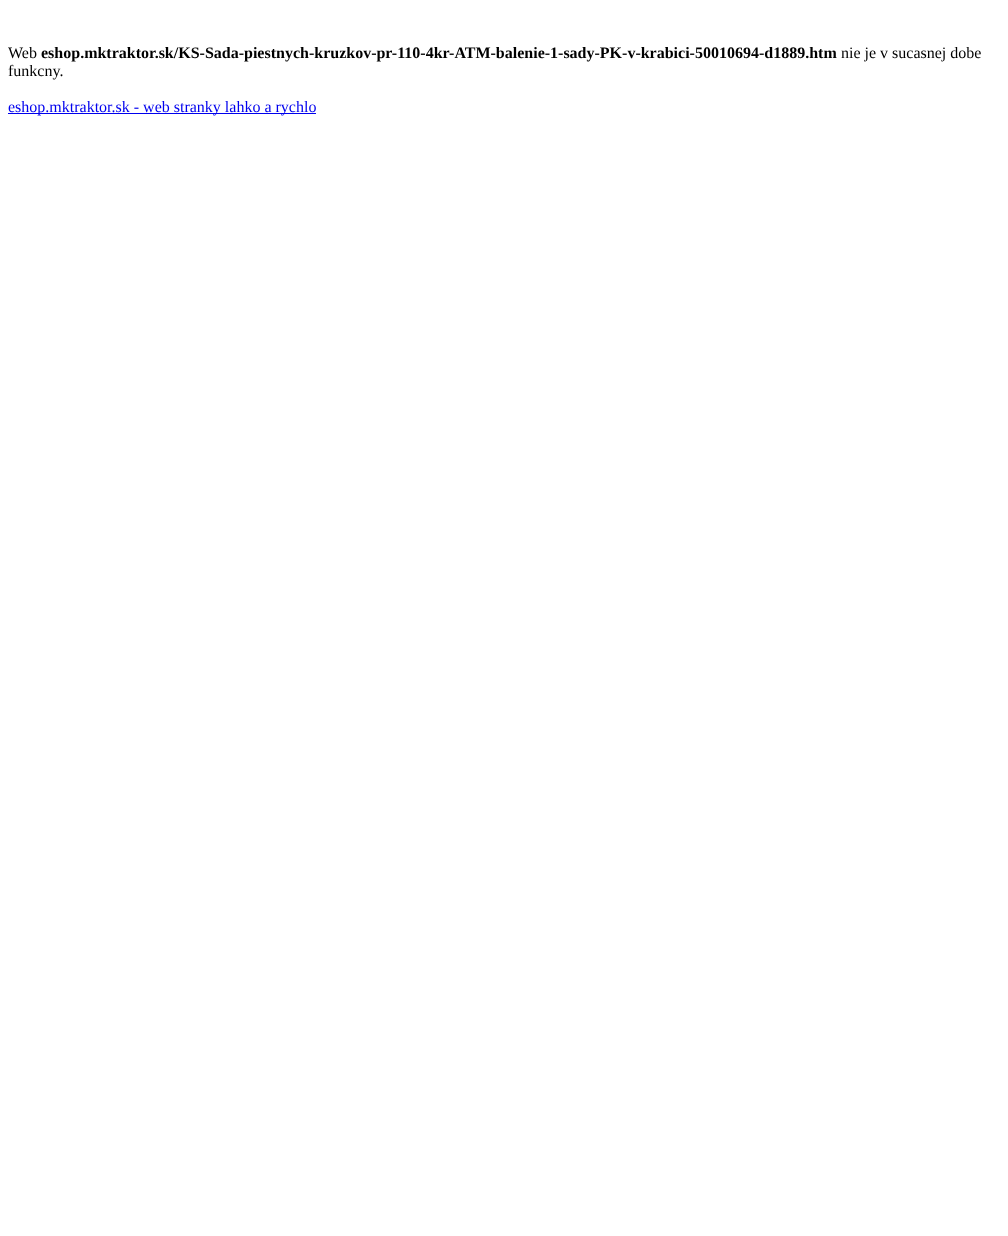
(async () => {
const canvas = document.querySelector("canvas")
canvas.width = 1008
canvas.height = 1236
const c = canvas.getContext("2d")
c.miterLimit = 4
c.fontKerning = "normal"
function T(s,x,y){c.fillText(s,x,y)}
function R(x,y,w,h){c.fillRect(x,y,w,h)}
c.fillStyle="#fff"
R(0,0,1008,1236)
c.font="16px Liberation Serif"
c.fillStyle="#000"
T("Web",8,58)
c.font="bold 16px Liberation Serif"
T("eshop.mktraktor.sk/KS-Sada-piestnych-kruzkov-pr-110-4kr-ATM-balenie-1-sady-PK-v-krabici-50010694-d1889.htm",41,58)
c.font="16px Liberation Serif"
T("nie je v sucasnej dobe",841,58)
T("funkcny.",8,76)
c.fillStyle="#00e"
R(8,113,308,1)
T("eshop.mktraktor.sk - web stranky lahko a rychlo",8,112)
})()
